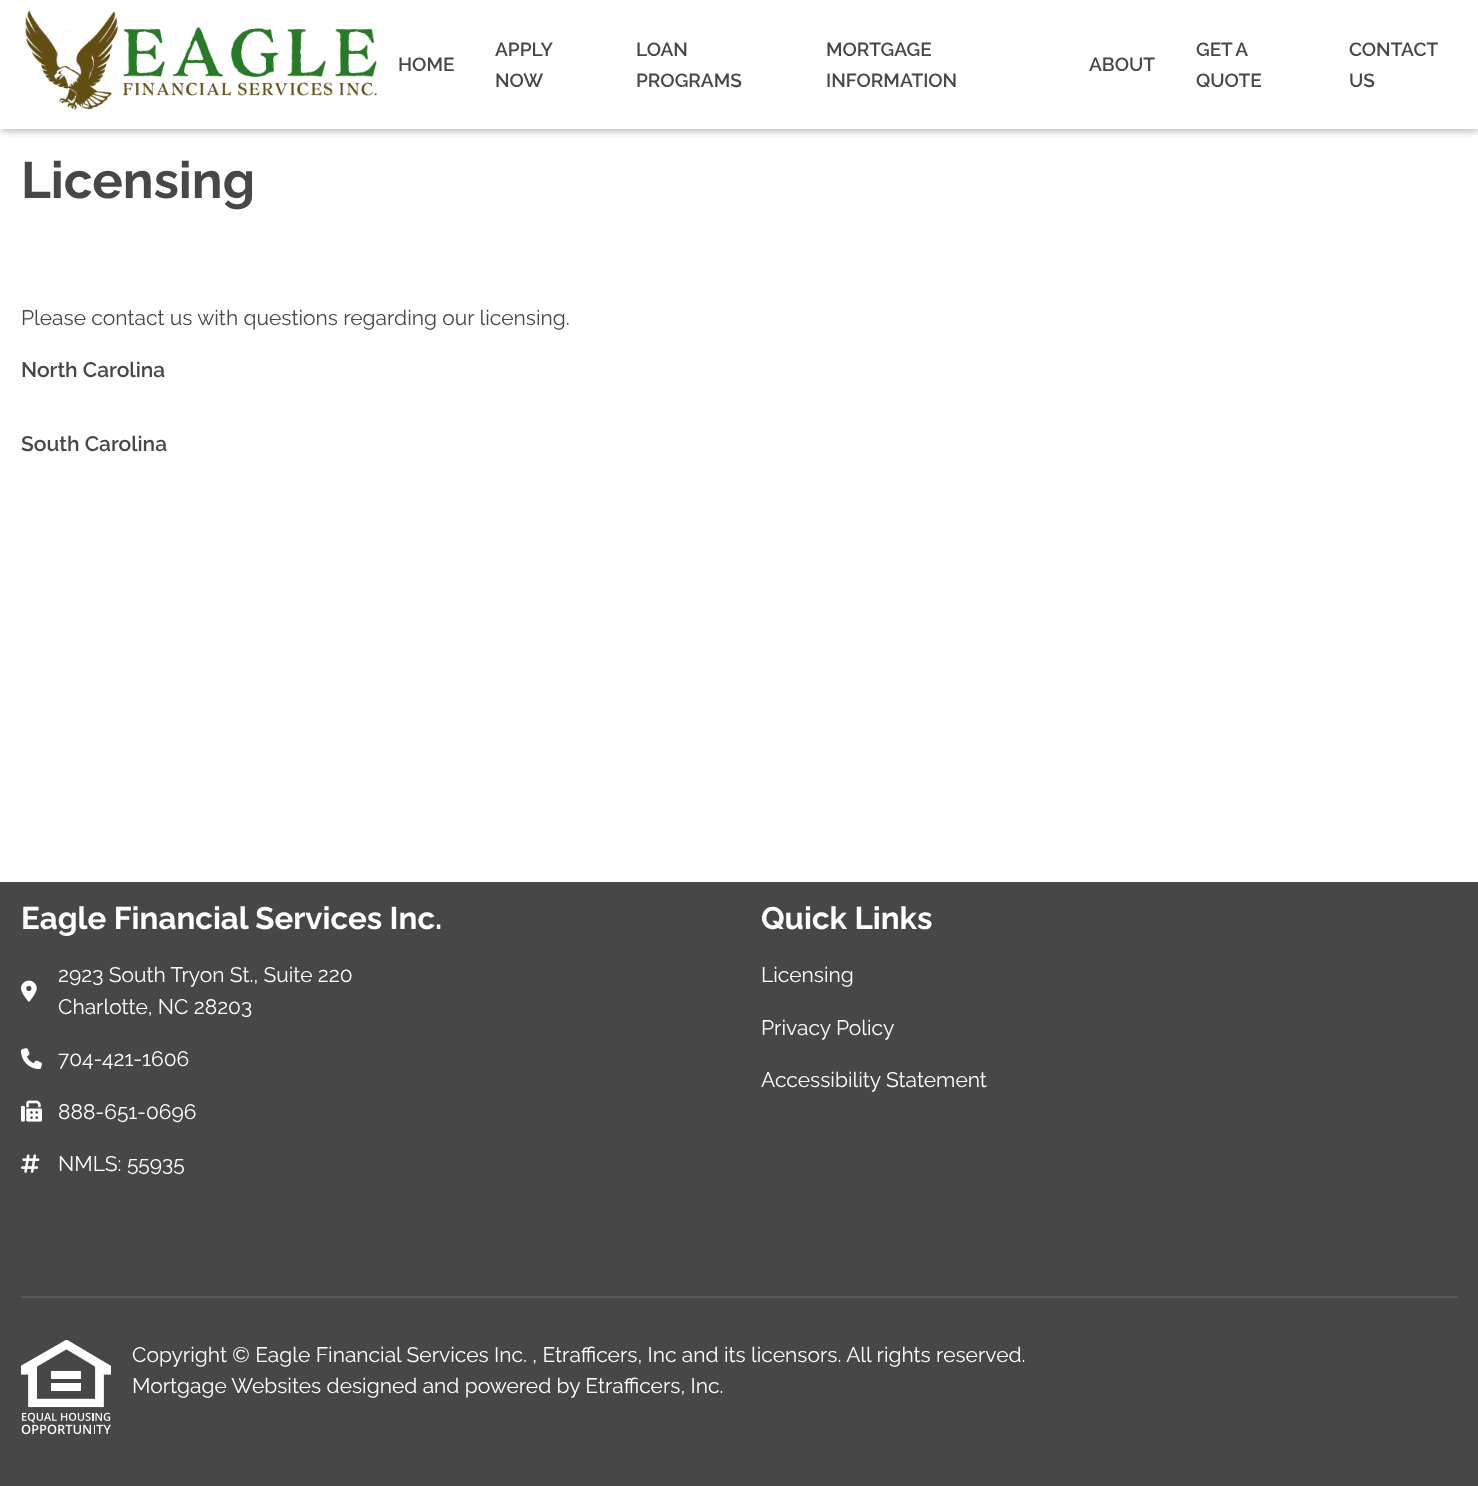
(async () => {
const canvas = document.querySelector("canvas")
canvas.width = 1478
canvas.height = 1486
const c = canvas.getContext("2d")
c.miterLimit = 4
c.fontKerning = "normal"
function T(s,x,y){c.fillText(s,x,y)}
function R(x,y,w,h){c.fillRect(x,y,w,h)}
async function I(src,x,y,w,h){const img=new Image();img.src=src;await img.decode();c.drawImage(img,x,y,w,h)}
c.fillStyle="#fff"
R(0,0,1478,1486)
c.save()
c.beginPath()
c.rect(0,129,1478,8)
c.clip()
c.fillStyle="#0000001a"
c.filter="blur(7.5px)"
c.beginPath()
c.rect(0,2,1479,129)
c.fill()
c.filter="none"
c.restore()
c.save()
c.beginPath()
c.rect(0,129,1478,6)
c.clip()
c.fillStyle="#00000033"
c.filter="blur(3px)"
c.beginPath()
c.rect(2,5,1476,126)
c.fill()
c.filter="none"
c.restore()
await I("1.png",25,10,352,100)
c.font="600 19px Raleway"
c.fillStyle="#474747"
T("HOME",398,71)
T("APPLY",495,56)
T("NOW",495,87)
T("LOAN",636,56)
T("PROGRAMS",636,87)
T("MORTGAGE",826,56)
T("INFORMATION",826,87)
T("ABOUT",1089,71)
c.wordSpacing="-1px"
T("GET A",1196,56)
c.wordSpacing="0px"
T("QUOTE",1196,87)
T("CONTACT",1349,56)
T("US",1349,87)
c.font="bold 51px Raleway"
T("Licensing",21,198)
c.font="21px Raleway"
T("Please contact us with questions regarding our licensing.",21,325)
c.font="600 21px Raleway"
T("North Carolina",21,377)
T("South Carolina",21,451)
R(0,882,1478,604)
c.font="bold 31.25px Raleway"
c.fillStyle="#fff"
T("Eagle Financial Services Inc.",21,929)
await I("2.png",21,980,16,22)
c.font="21px Raleway"
T("2923 South Tryon St., Suite 220",58,982)
T("Charlotte, NC 28203",58,1014)
await I("3.png",21,1048,21,22)
T("704-421-1606",58,1066)
await I("4.png",21,1100,21,22)
T("888-651-0696",58,1119)
await I("5.png",21,1154,19,19)
T("NMLS: 55935",58,1171)
c.font="bold 31.25px Raleway"
T("Quick Links",761,929)
c.font="21px Raleway"
T("Licensing",761,982)
T("Privacy Policy",761,1035)
T("Accessibility Statement",761,1087)
c.fillStyle="#595959"
R(21,1296,1437,2)
await I("6.png",21,1340,90,95)
c.fillStyle="#fff"
T("Copyright © Eagle Financial Services Inc. , Etrafficers, Inc and its licensors. All rights reserved.",132,1362)
T("Mortgage Websites designed and powered by Etrafficers, Inc.",132,1393)
})()
